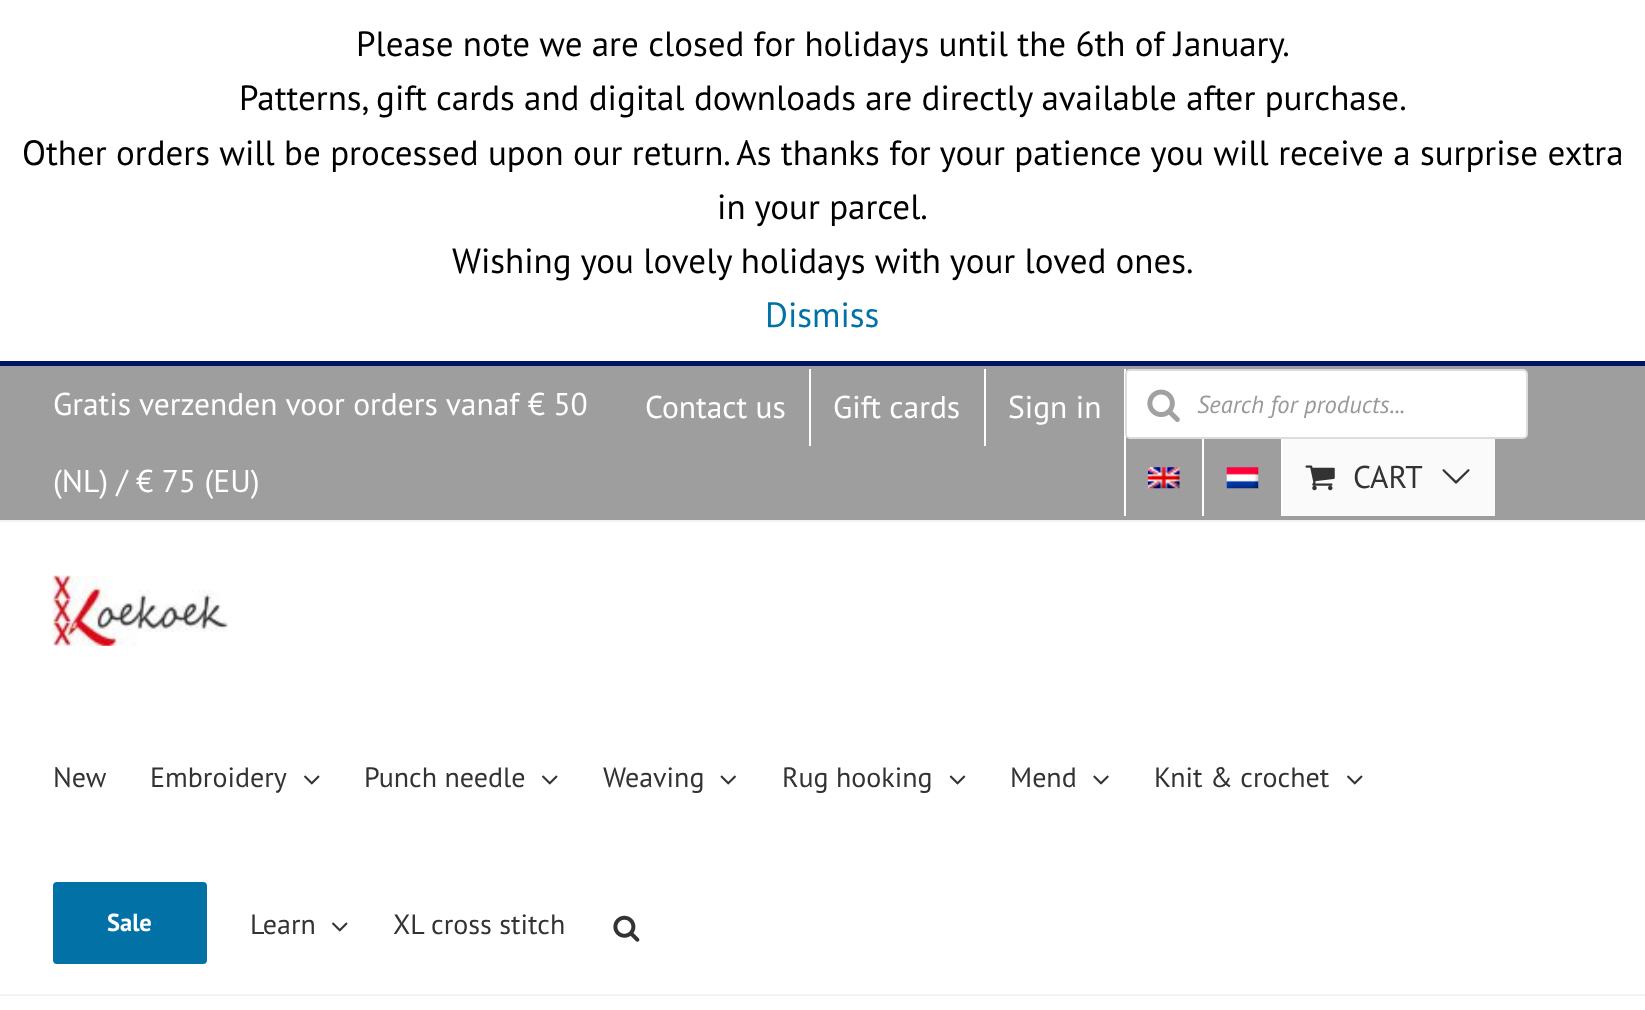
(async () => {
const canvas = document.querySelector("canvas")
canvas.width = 1645
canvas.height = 1010
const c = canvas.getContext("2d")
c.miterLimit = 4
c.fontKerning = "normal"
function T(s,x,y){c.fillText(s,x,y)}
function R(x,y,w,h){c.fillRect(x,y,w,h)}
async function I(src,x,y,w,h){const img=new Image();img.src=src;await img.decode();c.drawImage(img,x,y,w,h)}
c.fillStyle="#fff"
R(0,0,1645,1010)
c.font="35px PT Sans"
c.fillStyle="#000"
T("Please note we are closed for holidays until the 6th of January.",356,56)
T("Patterns, gift cards and digital downloads are directly available after purchase.",239,110)
T("Other orders will be processed upon our return. As thanks for your patience you will receive a surprise extra",22,165)
T("in your parcel.",717,219)
T("Wishing you lovely holidays with your loved ones.",452,273)
c.fillStyle="#0272a6"
T("Dismiss",765,327)
c.fillStyle="#9e9e9e"
R(0,366,1645,154)
c.fillStyle="#001466"
R(0,361,1645,5)
c.fillStyle="#f2f2f2"
R(0,520,1645,2)
c.font="31.5px PT Sans"
c.fillStyle="#fff"
T("Gratis verzenden voor orders vanaf € 50",53,415)
T("(NL) / € 75 (EU)",53,492)
T("Contact us",645,418)
R(809,369,2,77)
T("Gift cards",833,418)
R(984,369,2,77)
T("Sign in",1008,418)
R(1124,369,2,147)
c.beginPath()
c.roundRect(1126,370,401,68,4)
c.fill()
c.strokeStyle="#ddd"
c.lineWidth=2
c.stroke()
await I("1.png",1147,389,33,33)
c.font="italic 24.5px PT Sans"
c.fillStyle="#999"
T("Search for products...",1197,413)
await I("2.png",1148,467,32,22)
c.fillStyle="#fff"
R(1202,439,2,77)
await I("3.png",1226,467,33,22)
R(1281,439,2,77)
c.fillStyle="#fafafa"
R(1283,439,212,77)
await I("4.png",1305,465,30,26)
c.font="31.5px PT Sans"
c.fillStyle="#333"
T("CART",1353,488)
await I("5.png",1442,469,28,15)
c.fillStyle="#f2f2f2"
R(0,994,1645,2)
await I("6.png",52,575,176,71)
c.font="28px PT Sans"
c.fillStyle="#333"
T("New",53,787)
T("Embroidery",150,787)
await I("7.png",304,775,16,10)
T("Punch needle",364,787)
await I("7.png",542,775,16,10)
T("Weaving",603,787)
await I("8.png",720,775,16,10)
T("Rug hooking",782,787)
await I("9.png",949,775,17,10)
T("Mend",1010,787)
await I("10.png",1093,775,16,10)
T("Knit & crochet",1154,787)
await I("7.png",1347,775,16,10)
c.fillStyle="#0272a6"
c.beginPath()
c.roundRect(55,884,150,78,2)
c.fill()
c.strokeStyle="#0272a6"
c.lineWidth=4
c.stroke()
c.font="bold 24.5px PT Sans"
c.fillStyle="#fff"
T("Sale",107,931)
c.font="28px PT Sans"
c.fillStyle="#333"
T("Learn",250,934)
await I("7.png",332,922,16,10)
T("XL cross stitch",393,934)
await I("11.png",613,915,27,27)
})()
